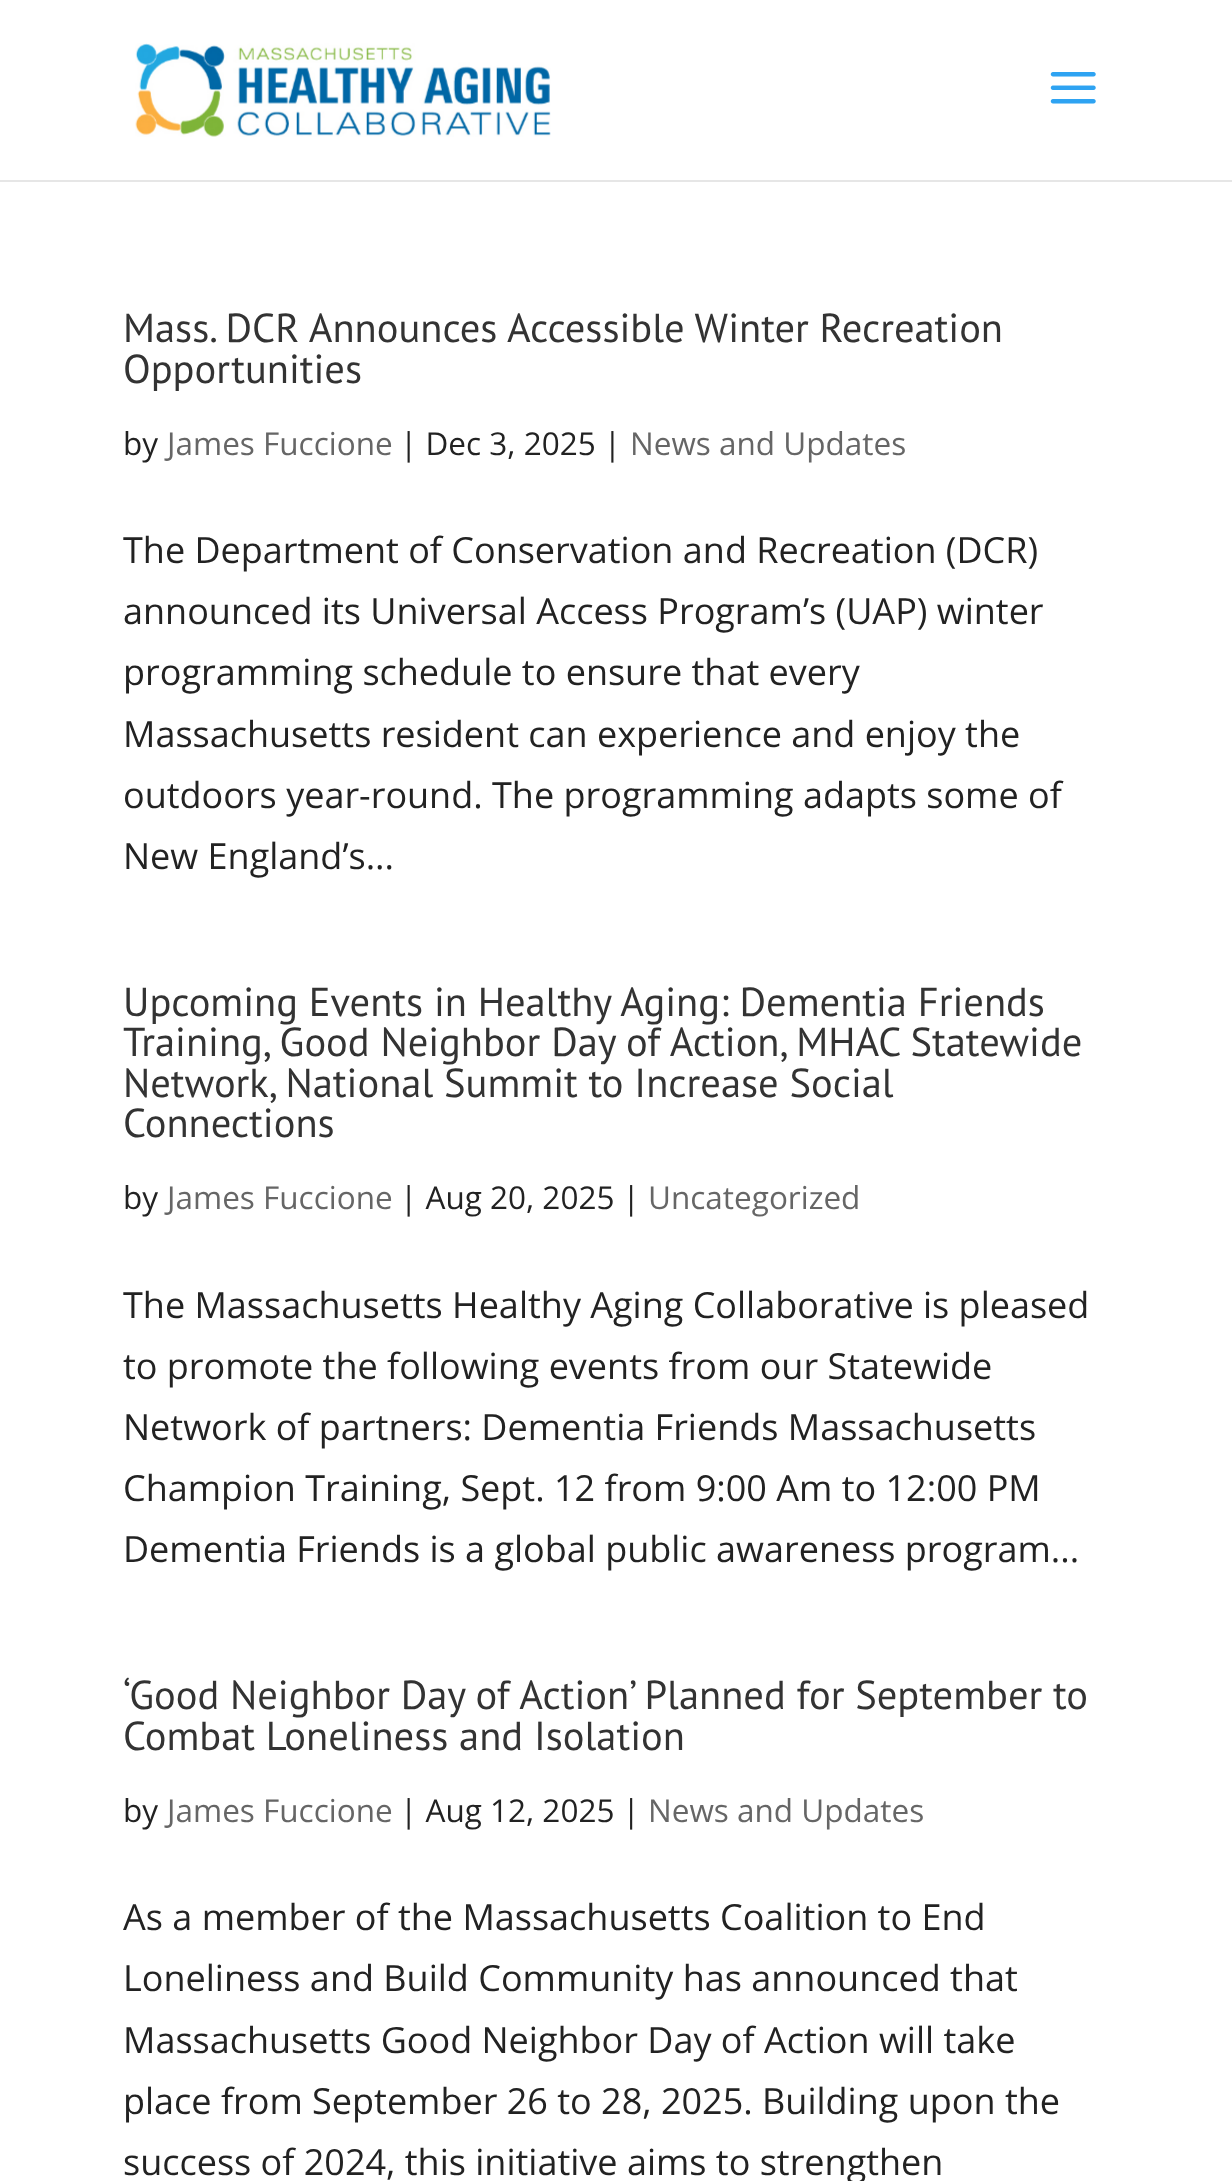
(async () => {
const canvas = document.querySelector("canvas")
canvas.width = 1232
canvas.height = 2181
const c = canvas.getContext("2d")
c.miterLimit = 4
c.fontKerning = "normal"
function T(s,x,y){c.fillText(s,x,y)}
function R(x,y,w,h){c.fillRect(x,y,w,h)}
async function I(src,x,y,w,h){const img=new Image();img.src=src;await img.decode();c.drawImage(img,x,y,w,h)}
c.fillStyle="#fff"
R(0,0,1232,2181)
c.fillStyle="#e6e6e6"
R(0,180,1232,2)
await I("1.png",135,43,416,94)
await I("2.png",1050,72,46,32)
c.font="40.5px PT Sans"
c.fillStyle="#333"
T("Mass. DCR Announces Accessible Winter Recreation",123,342)
T("Opportunities",123,383)
c.font="31.5px Open Sans"
c.fillStyle="#222"
T("by",123,455)
c.fillStyle="#666"
T("James Fuccione",167,455)
c.fillStyle="#222"
T("| Dec 3, 2025 |",400,455)
c.fillStyle="#666"
T("News and Updates",630,455)
c.font="36px Open Sans"
c.fillStyle="#222"
T("The Department of Conservation and Recreation (DCR)",123,563)
T("announced its Universal Access Program’s (UAP) winter",123,624)
T("programming schedule to ensure that every",123,685)
T("Massachusetts resident can experience and enjoy the",123,747)
T("outdoors year-round. The programming adapts some of",123,808)
T("New England’s...",123,869)
c.font="40.5px PT Sans"
c.fillStyle="#333"
T("Upcoming Events in Healthy Aging: Dementia Friends",123,1016)
T("Training, Good Neighbor Day of Action, MHAC Statewide",123,1056)
T("Network, National Summit to Increase Social",123,1097)
T("Connections",123,1137)
c.font="31.5px Open Sans"
c.fillStyle="#222"
T("by",123,1209)
c.fillStyle="#666"
T("James Fuccione",167,1209)
c.fillStyle="#222"
T("| Aug 20, 2025 |",400,1209)
c.fillStyle="#666"
T("Uncategorized",648,1209)
c.font="36px Open Sans"
c.fillStyle="#222"
T("The Massachusetts Healthy Aging Collaborative is pleased",123,1318)
T("to promote the following events from our Statewide",123,1379)
T("Network of partners: Dementia Friends Massachusetts",123,1440)
T("Champion Training, Sept. 12 from 9:00 Am to 12:00 PM",123,1501)
T("Dementia Friends is a global public awareness program...",123,1562)
c.font="40.5px PT Sans"
c.fillStyle="#333"
T("‘Good Neighbor Day of Action’ Planned for September to",123,1709)
T("Combat Loneliness and Isolation",123,1750)
c.font="31.5px Open Sans"
c.fillStyle="#222"
T("by",123,1822)
c.fillStyle="#666"
T("James Fuccione",167,1822)
c.fillStyle="#222"
T("| Aug 12, 2025 |",400,1822)
c.fillStyle="#666"
T("News and Updates",648,1822)
c.font="36px Open Sans"
c.fillStyle="#222"
T("As a member of the Massachusetts Coalition to End",123,1930)
T("Loneliness and Build Community has announced that",123,1991)
T("Massachusetts Good Neighbor Day of Action will take",123,2053)
T("place from September 26 to 28, 2025. Building upon the",123,2114)
T("success of 2024, this initiative aims to strengthen",123,2175)
})()
